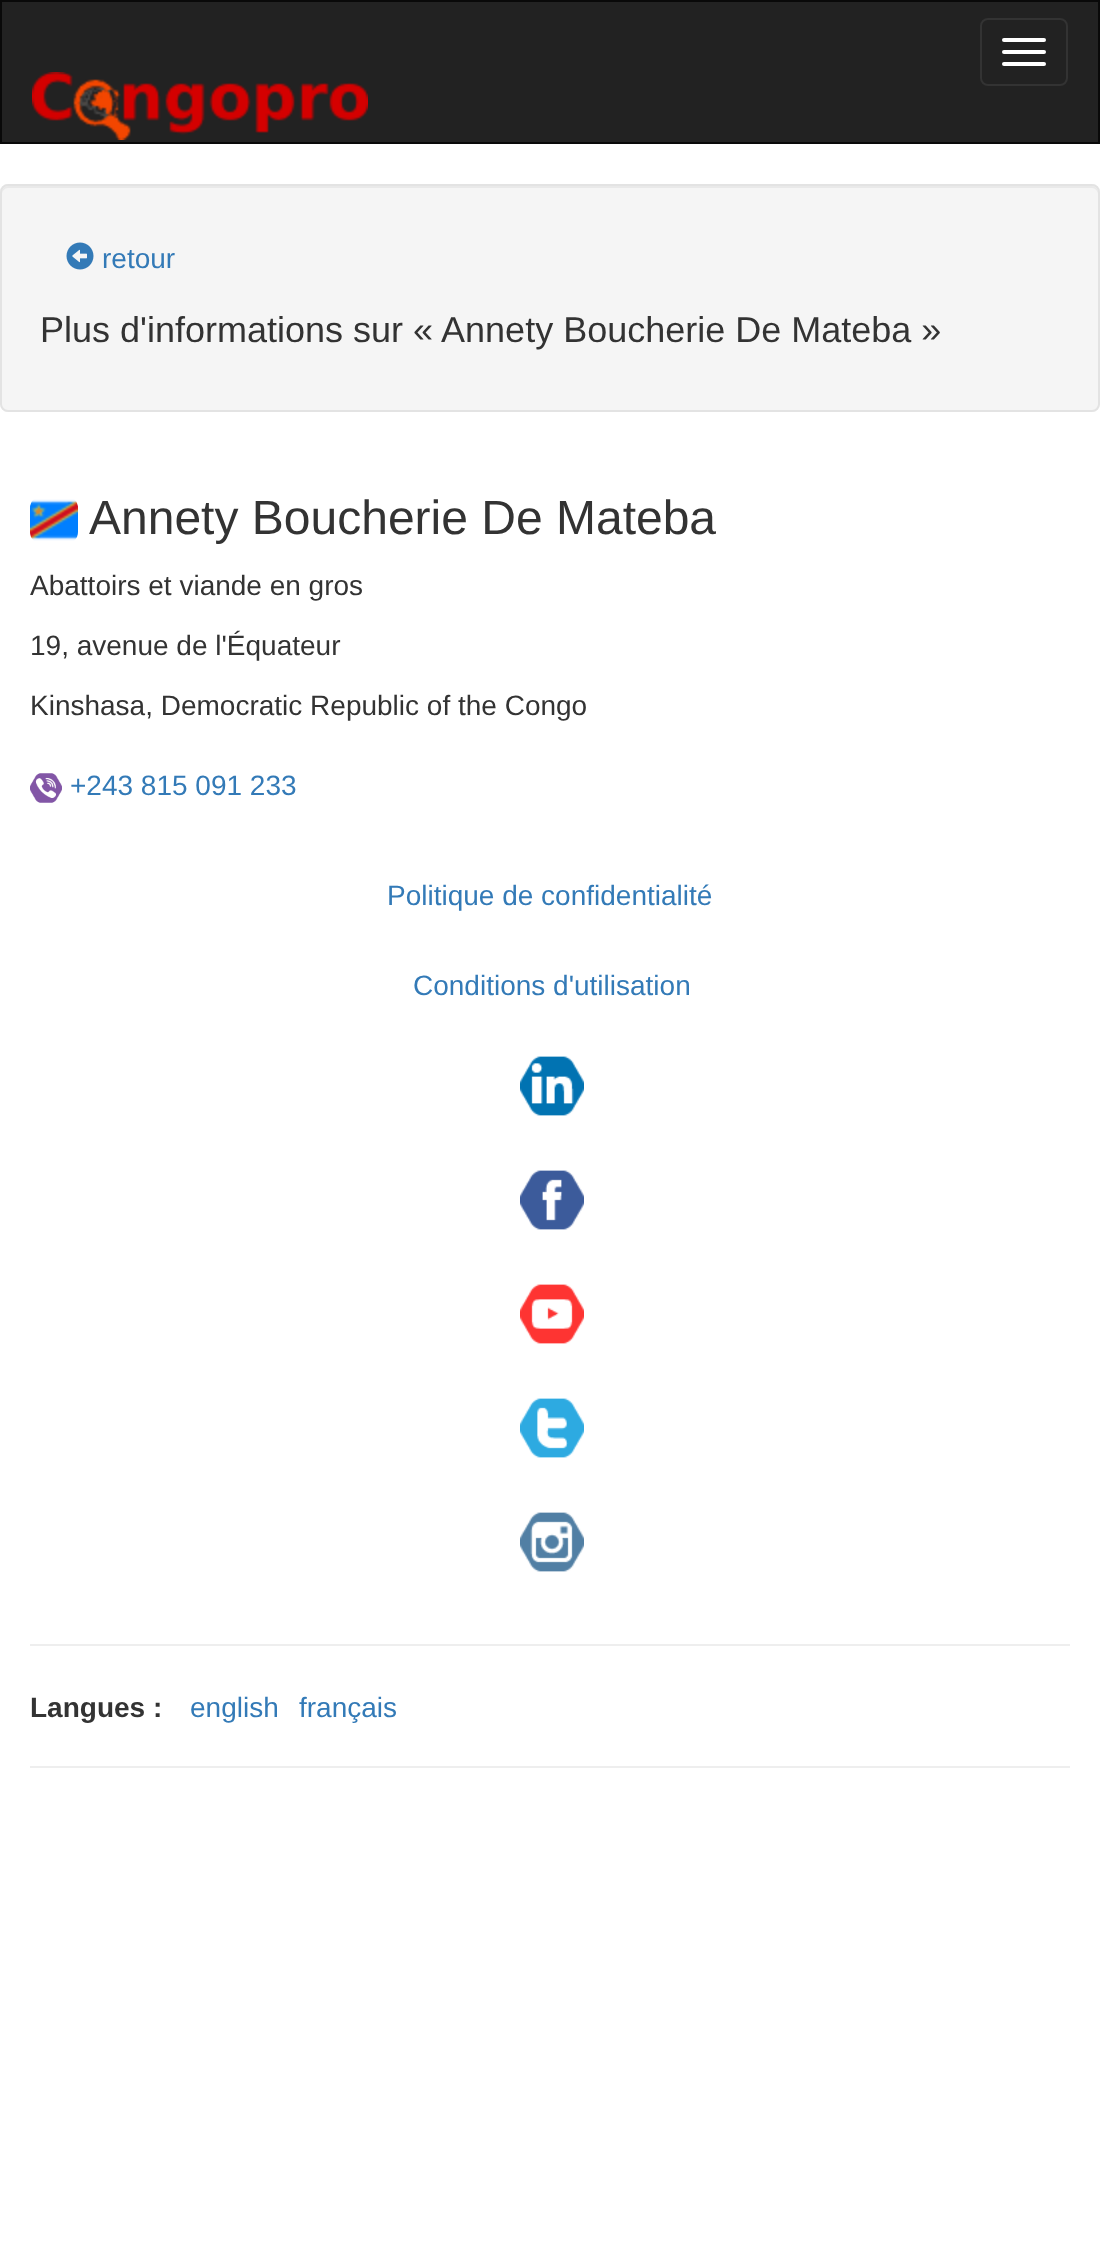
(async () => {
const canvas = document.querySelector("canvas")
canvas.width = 1100
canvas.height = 2246
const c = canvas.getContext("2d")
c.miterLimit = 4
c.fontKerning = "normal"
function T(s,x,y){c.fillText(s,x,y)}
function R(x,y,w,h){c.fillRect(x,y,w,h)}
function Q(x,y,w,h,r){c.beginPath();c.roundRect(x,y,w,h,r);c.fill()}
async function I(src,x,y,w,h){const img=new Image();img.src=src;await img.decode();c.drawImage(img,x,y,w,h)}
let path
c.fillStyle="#fff"
R(0,0,1100,2246)
c.fillStyle="#222"
c.beginPath()
c.rect(1,1,1098,142)
c.fill()
c.strokeStyle="#090909"
c.lineWidth=2
c.stroke()
c.beginPath()
c.roundRect(981,19,86,66,7)
c.strokeStyle="#333"
c.stroke()
c.fillStyle="#fff"
Q(1002,38,44,4,2)
Q(1002,50,44,4,2)
Q(1002,62,44,4,2)
await I("1.png",32,72,336,68)
c.fillStyle="#f5f5f5"
Q(0,184,1100,228,8)
c.fillStyle="#e9e9e9"
path = new Path2D("M8 188h1084c3 0 6 3 6 6v-2c0-3-3-6-6-6h-1084c-3 0-6 3-6 6v2c0-3 3-6 6-6z")
c.fill(path)
c.beginPath()
c.roundRect(1,185,1098,226,7)
c.strokeStyle="#e3e3e3"
c.stroke()
await I("2.png",66,242,28,28)
c.font="28px Liberation Sans"
c.fillStyle="#337ab7"
T("retour",102,268)
c.font="36px Liberation Sans"
c.fillStyle="#333"
T("Plus d'informations sur « Annety Boucherie De Mateba »",40,342)
await I("3.png",30,499,48,42)
c.font="48px Liberation Sans"
T("Annety Boucherie De Mateba",89,534)
c.font="28px Liberation Sans"
T("Abattoirs et viande en gros",30,595)
T("19, avenue de l'Équateur",30,655)
T("Kinshasa, Democratic Republic of the Congo",30,715)
await I("4.png",30,773,32,30)
c.fillStyle="#337ab7"
T("+243 815 091 233",70,795)
T("Politique de confidentialité",387,905)
T("Conditions d'utilisation",413,995)
await I("5.png",520,1056,64,60)
await I("6.png",520,1170,64,60)
await I("7.png",520,1284,64,60)
await I("8.png",520,1398,64,60)
await I("9.png",520,1512,64,60)
c.fillStyle="#eee"
R(30,1644,1040,2)
c.font="bold 28px Liberation Sans"
c.fillStyle="#333"
T("Langues :",30,1717)
c.font="28px Liberation Sans"
c.fillStyle="#337ab7"
T("english",190,1717)
T("français",299,1717)
c.fillStyle="#eee"
R(30,1766,1040,2)
})()
